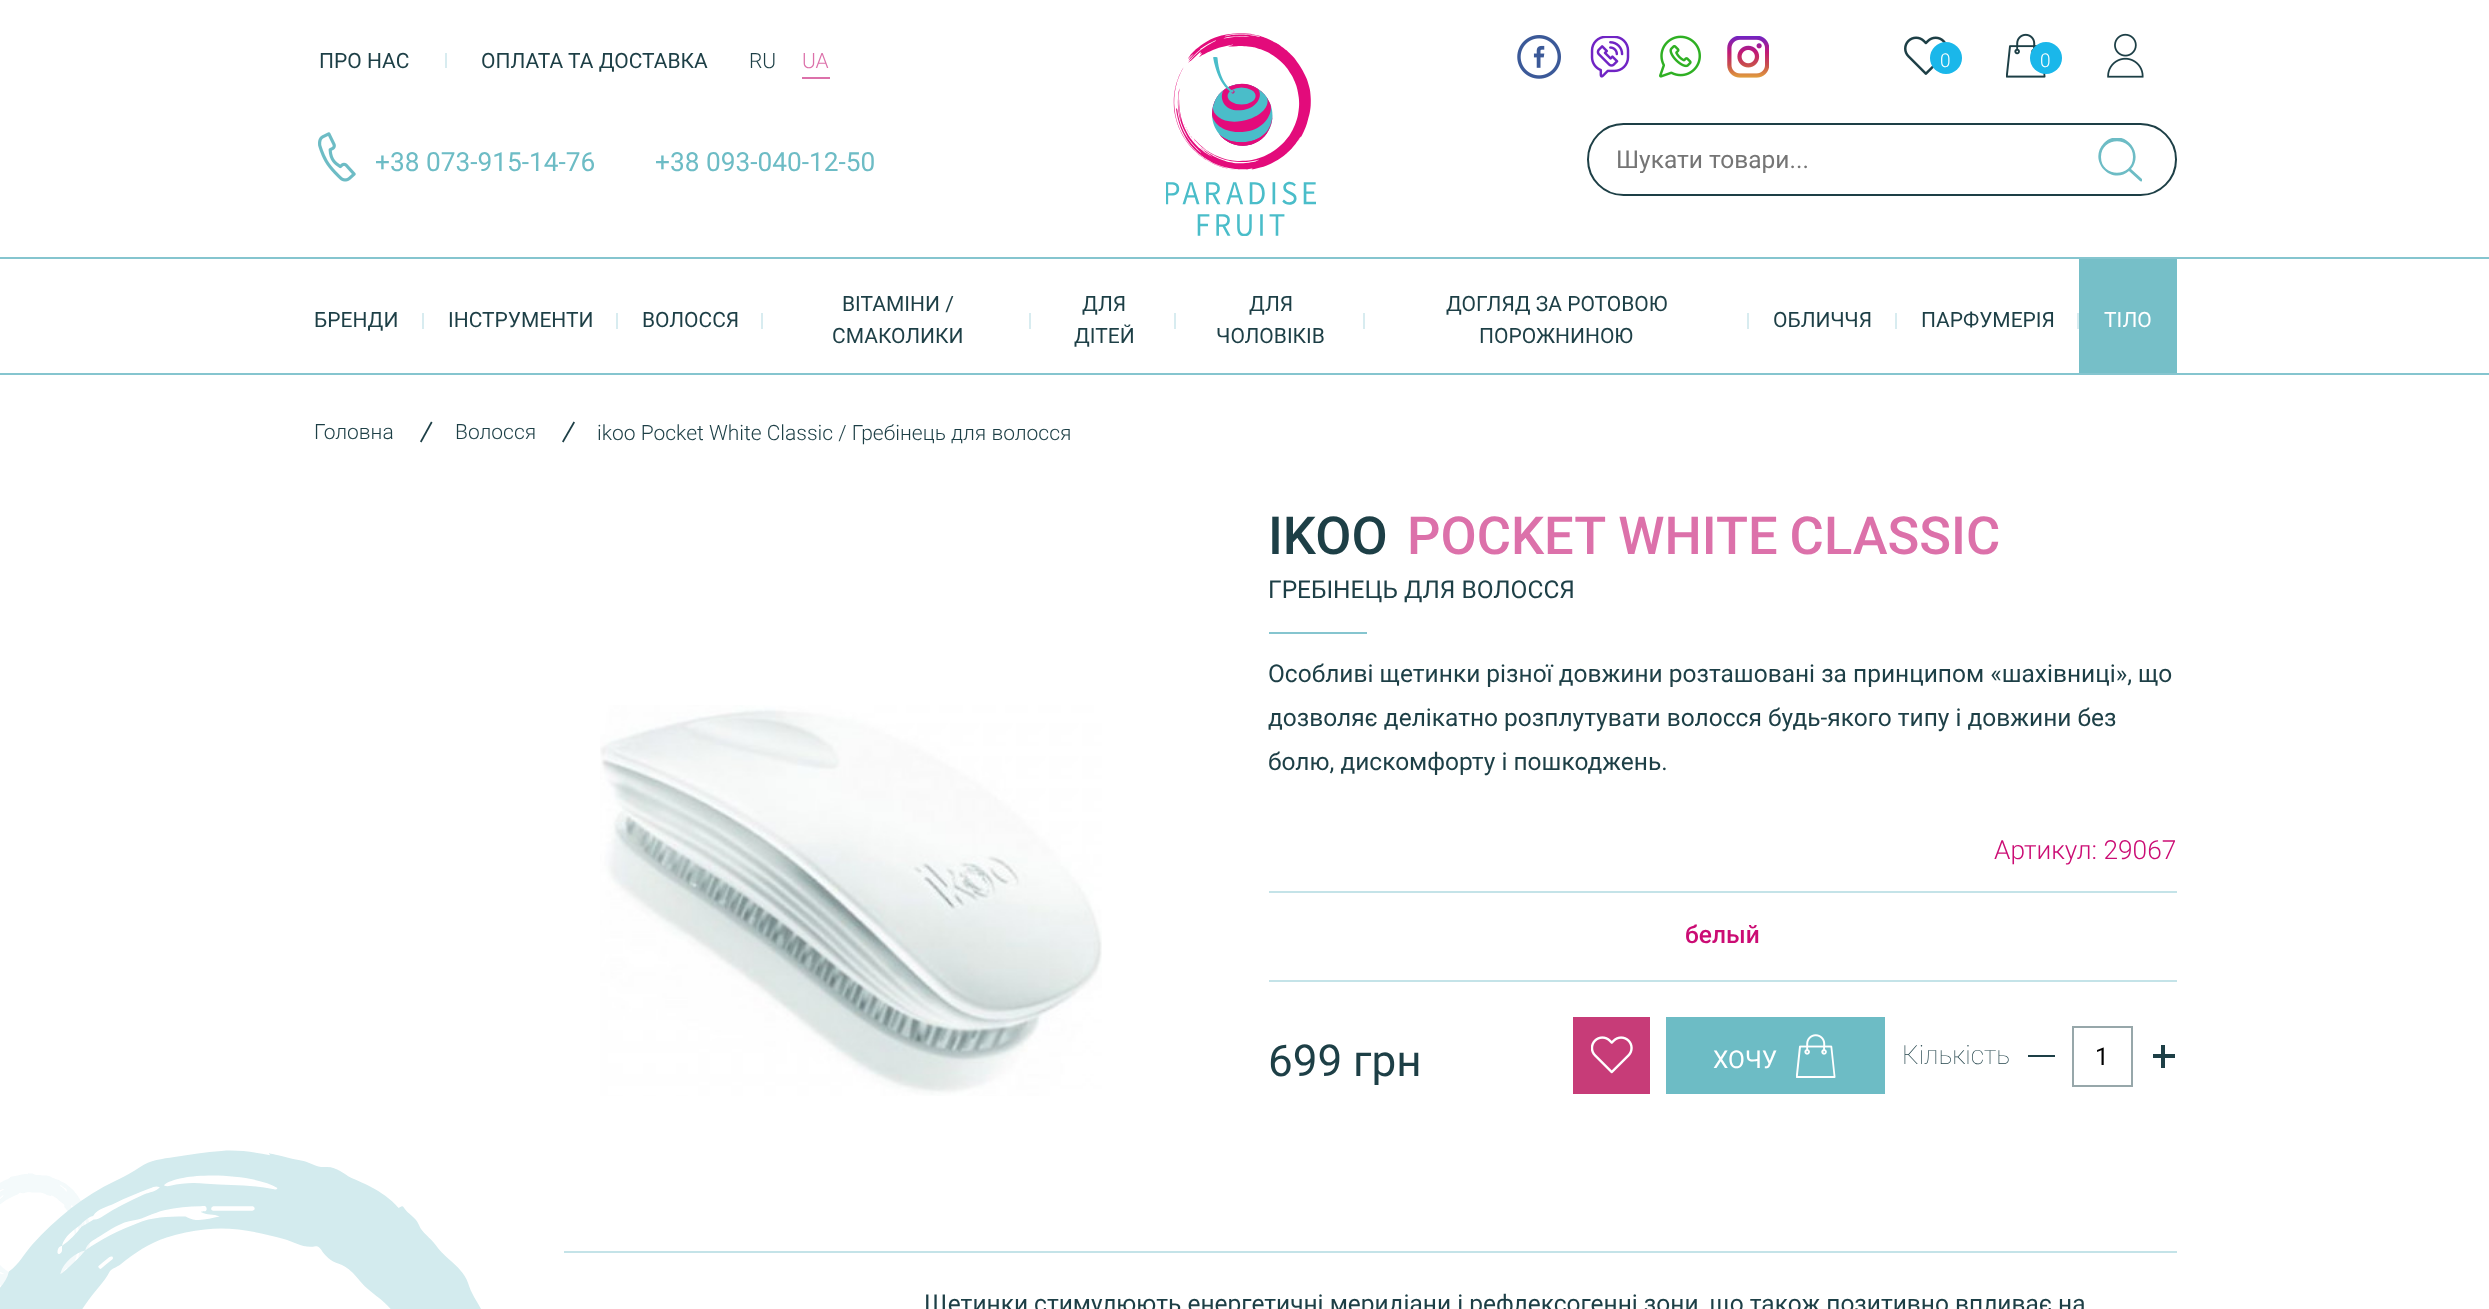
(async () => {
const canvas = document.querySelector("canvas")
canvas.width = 2489
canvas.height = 1309
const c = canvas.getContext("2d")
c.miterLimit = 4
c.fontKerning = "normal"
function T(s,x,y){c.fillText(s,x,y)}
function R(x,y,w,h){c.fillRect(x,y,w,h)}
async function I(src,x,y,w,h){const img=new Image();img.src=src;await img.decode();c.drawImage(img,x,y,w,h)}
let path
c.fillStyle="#fff"
R(0,0,2489,1309)
c.font="21px Roboto"
c.fillStyle="#1d3f46"
T("ПРО НАС",319,68)
c.fillStyle="#d8ecf0"
R(445,53,2,15)
c.fillStyle="#1d3f46"
T("ОПЛАТА ТА ДОСТАВКА",481,68)
c.font="300 21px Roboto"
T("RU",749,68)
c.fillStyle="#dc71aa"
T("UA",802,68)
R(802,77,28,2)
await I("1.png",318,132,38,50)
c.font="26.25px Roboto"
c.fillStyle="#6dbcc5"
T("+38 073-915-14-76",375,171)
T("+38 093-040-12-50",655,171)
await I("2.png",1166,33,150,203)
await I("3.png",1517,35,44,44)
await I("4.png",1590,36,40,42)
await I("5.png",1659,35,42,43)
await I("6.png",1727,36,42,42)
await I("7.png",1904,36,44,39)
c.fillStyle="#1ab7ea"
c.beginPath()
c.arc(1946,58,16,0,7)
c.fill()
c.font="300 19px Roboto"
c.fillStyle="#fff"
T("0",1940,67)
await I("8.png",2006,33,40,45)
c.fillStyle="#1ab7ea"
c.beginPath()
c.arc(2046,58,16,0,7)
c.fill()
c.fillStyle="#fff"
T("0",2040,67)
await I("9.png",2107,33,37,45)
c.beginPath()
c.roundRect(1588,124,588,71,35.5)
c.strokeStyle="#1d3f46"
c.lineWidth=2
c.stroke()
c.save()
c.beginPath()
c.rect(1617,145,460,28)
c.clip()
c.font="24.5px Roboto"
c.fillStyle="#757575"
T("Шукати товари...",1616,168)
c.restore()
c.save()
c.beginPath()
c.rect(2098,138,44,44)
c.clip()
c.fillStyle="#6dbcc5"
path = new Path2D("M2142 179l-11-10c15-18-10-43-27-26c-17 18 8 43 25 28l11 10c1 1 3 0 2-2zm-41-22c0-21 32-21 32 0c0 21-32 21-32 0z")
c.fill(path)
c.restore()
c.fillStyle="#85c5cf"
R(0,257,2489,2)
R(0,373,2489,2)
c.font="21px Roboto"
c.fillStyle="#1d3f46"
T("БРЕНДИ",314,327)
c.fillStyle="#d8ecf0"
R(422,313,2,16)
c.fillStyle="#1d3f46"
T("ІНСТРУМЕНТИ",448,327)
c.fillStyle="#d8ecf0"
R(616,313,2,16)
c.fillStyle="#1d3f46"
T("ВОЛОССЯ",642,327)
c.fillStyle="#d8ecf0"
R(761,313,2,16)
c.fillStyle="#1d3f46"
T("ВІТАМІНИ /",842,311)
c.fillStyle="#d8ecf0"
R(1029,313,2,16)
c.fillStyle="#1d3f46"
T("СМАКОЛИКИ",832,343)
T("ДЛЯ",1082,311)
c.fillStyle="#d8ecf0"
R(1174,313,2,16)
c.fillStyle="#1d3f46"
T("ДІТЕЙ",1074,343)
T("ДЛЯ",1249,311)
c.fillStyle="#d8ecf0"
R(1363,313,2,16)
c.fillStyle="#1d3f46"
T("ЧОЛОВІКІВ",1216,343)
T("ДОГЛЯД ЗА РОТОВОЮ",1446,311)
c.fillStyle="#d8ecf0"
R(1747,313,2,16)
c.fillStyle="#1d3f46"
T("ПОРОЖНИНОЮ",1479,343)
T("ОБЛИЧЧЯ",1773,327)
c.fillStyle="#d8ecf0"
R(1895,313,2,16)
c.fillStyle="#1d3f46"
T("ПАРФУМЕРІЯ",1921,327)
c.fillStyle="#d8ecf0"
R(2077,313,2,16)
c.fillStyle="#76bfc8"
R(2079,259,98,114)
c.fillStyle="#fff"
T("ТІЛО",2104,327)
c.font="300 21px Roboto"
c.fillStyle="#1d3f46"
T("Головна",314,439)
path = new Path2D("M420 441.5l11-20l1.5 1l-11 20z")
c.fill(path)
T("Волосся",455,439)
path = new Path2D("M562 441.5l11.5-20l1.5 1l-11.5 20z")
c.fill(path)
T("ikoo Pocket White Classic / Гребінець для волосся",597,440)
await I("10.png",600,705,502,391)
c.font="500 52.5px Roboto"
T("IKOO",1268,554)
c.wordSpacing="-1px"
c.fillStyle="#dc71aa"
T("POCKET WHITE CLASSIC",1407,554)
c.wordSpacing="0px"
c.font="24.5px Roboto"
c.fillStyle="#1d3f46"
T("ГРЕБІНЕЦЬ ДЛЯ ВОЛОССЯ",1268,598)
c.fillStyle="#85c5cf"
R(1269,632,98,2)
c.fillStyle="#1d3f46"
T("Особливі щетинки різної довжини розташовані за принципом «шахівниці», що",1268,682)
T("дозволяє делікатно розплутувати волосся будь-якого типу і довжини без",1268,726)
T("болю, дискомфорту і пошкоджень.",1268,770)
c.font="300 26.25px Roboto"
c.fillStyle="#cb0c74"
T("Артикул: 29067",1994,859)
c.font="44px Roboto"
c.fillStyle="#1d3f46"
T("699 грн",1268,1076)
c.fillStyle="#c4e3e8"
R(1269,891,908,2)
R(1269,980,908,2)
c.font="500 24.5px Roboto"
c.fillStyle="#cb0c74"
T("белый",1685,943)
c.fillStyle="#c73c78"
R(1573,1017,77,77)
await I("11.png",1591,1036,42,38)
c.fillStyle="#6dbcc5"
R(1666,1017,219,77)
await I("12.png",1796,1034,40,44)
c.font="24.5px Roboto"
c.fillStyle="#fff"
T("ХОЧУ",1713,1068)
c.font="100 26.25px Roboto"
c.fillStyle="#1d3f46"
T("Кількість",1902,1064)
R(2028,1055,27,2)
c.strokeStyle="#97a7aa"
c.strokeRect(2073,1027,59,59)
c.font="24.5px Roboto"
c.fillStyle="#000"
T("1",2095,1065)
c.fillStyle="#1d3f46"
R(2153,1054,22,4)
R(2161,1045,4,23)
c.fillStyle="#c4e3e8"
R(564,1251,1613,2)
await I("13.png",0,1150,481,159)
c.fillStyle="#1d3f46"
T("Щетинки стимулюють енергетичні меридіани і рефлексогенні зони, що також позитивно впливає на",924,1312)
})()
